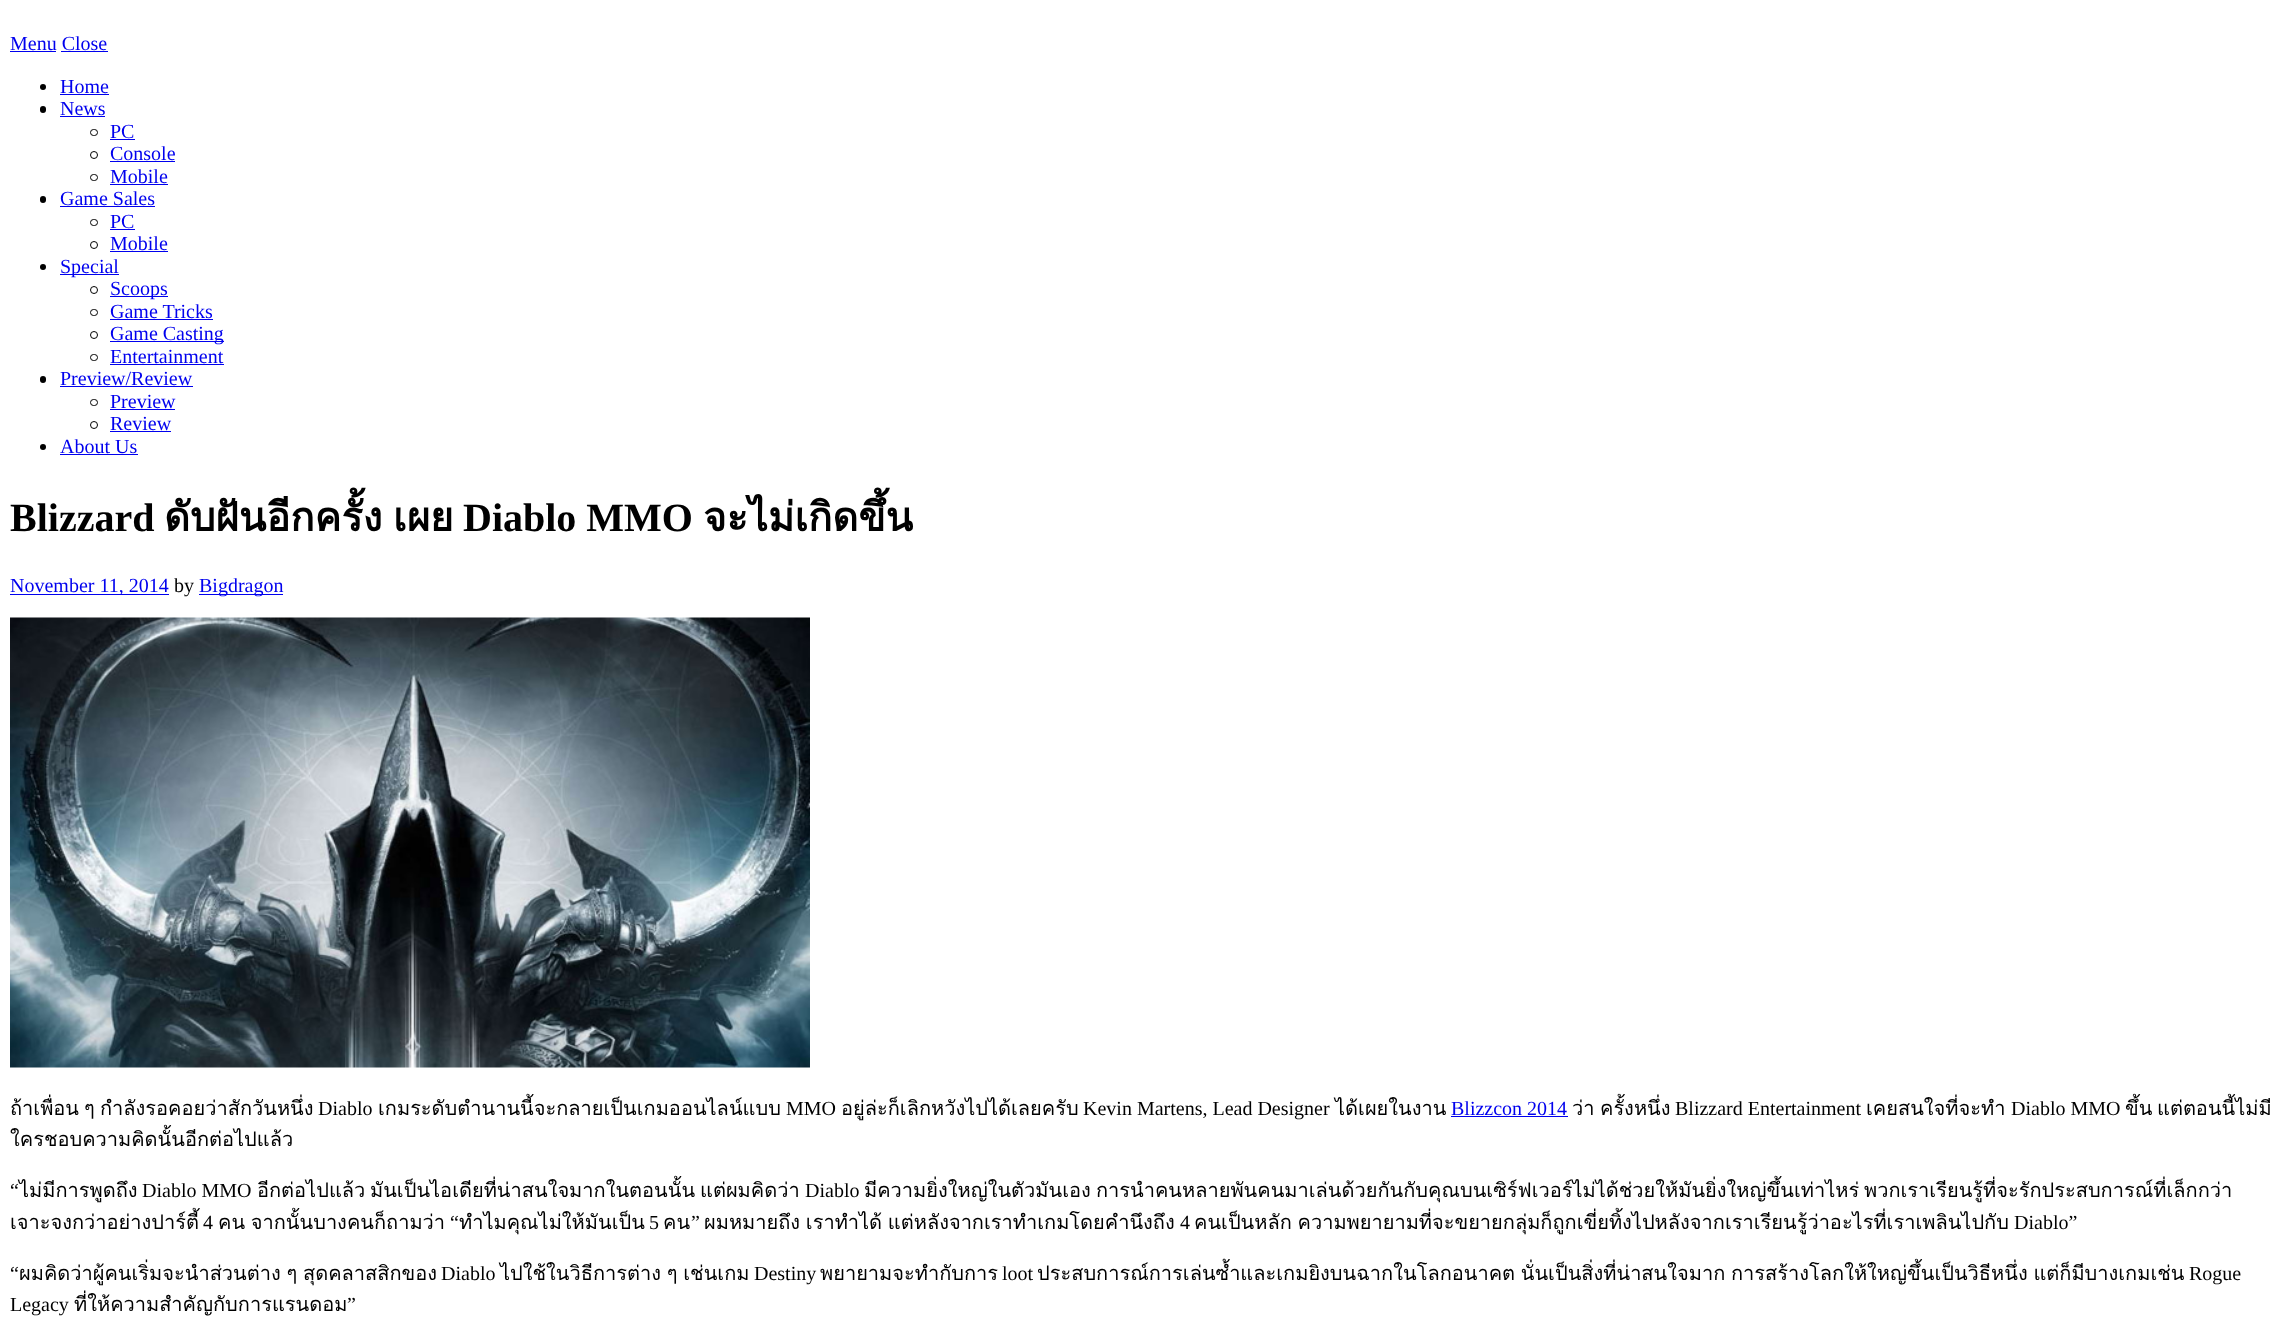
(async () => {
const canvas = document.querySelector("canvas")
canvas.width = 2284
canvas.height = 1320
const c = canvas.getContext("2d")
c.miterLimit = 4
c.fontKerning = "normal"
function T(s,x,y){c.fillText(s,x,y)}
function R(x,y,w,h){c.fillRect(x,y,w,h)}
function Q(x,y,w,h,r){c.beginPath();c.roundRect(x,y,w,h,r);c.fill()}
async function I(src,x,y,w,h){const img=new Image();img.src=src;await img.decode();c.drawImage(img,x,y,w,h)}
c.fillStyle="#fff"
R(0,0,2284,1320)
c.font="20px Liberation Serif"
c.fillStyle="#00e"
T("Menu Close",10,50)
R(10,51,46,1)
R(61,51,47,1)
c.fillStyle="#000"
c.beginPath()
c.arc(43,87,3,0,7)
c.fill()
c.fillStyle="#00e"
T("Home",60,93)
R(60,94,49,1)
c.fillStyle="#000"
Q(40,106,6,7,3)
c.fillStyle="#00e"
T("News",60,115)
R(60,116,45,1)
c.beginPath()
c.roundRect(90.5,129.5,7,6,3)
c.strokeStyle="#000"
c.stroke()
T("PC",110,138)
R(110,139,25,1)
c.beginPath()
c.arc(94,155,3.5,0,7)
c.stroke()
T("Console",110,160)
R(110,161,65,1)
c.beginPath()
c.roundRect(90.5,174.5,7,6,3)
c.stroke()
T("Mobile",110,183)
R(110,184,58,1)
c.fillStyle="#000"
Q(40,196,6,7,3)
c.fillStyle="#00e"
T("Game Sales",60,205)
R(60,206,95,1)
c.beginPath()
c.roundRect(90.5,219.5,7,6,3)
c.stroke()
T("PC",110,228)
R(110,229,25,1)
c.beginPath()
c.arc(94,245,3.5,0,7)
c.stroke()
T("Mobile",110,250)
R(110,251,58,1)
c.fillStyle="#000"
c.beginPath()
c.arc(43,267,3,0,7)
c.fill()
c.fillStyle="#00e"
R(60,274,59,1)
T("Special",60,273)
c.beginPath()
c.arc(94,290,3.5,0,7)
c.stroke()
R(110,296,58,1)
T("Scoops",110,295)
c.beginPath()
c.roundRect(90.5,309.5,7,6,3)
c.stroke()
T("Game Tricks",110,318)
R(110,319,103,1)
c.beginPath()
c.arc(94,335,3.5,0,7)
c.stroke()
R(110,341,114,1)
T("Game Casting",110,340)
c.beginPath()
c.roundRect(90.5,354.5,7,6,3)
c.stroke()
T("Entertainment",110,363)
R(110,364,114,1)
c.fillStyle="#000"
Q(40,376,6,7,3)
c.fillStyle="#00e"
T("Preview/Review",60,385)
R(60,386,133,1)
c.beginPath()
c.roundRect(90.5,399.5,7,6,3)
c.stroke()
T("Preview",110,408)
R(110,409,65,1)
c.beginPath()
c.arc(94,425,3.5,0,7)
c.stroke()
T("Review",110,430)
R(110,431,61,1)
c.fillStyle="#000"
c.beginPath()
c.arc(43,447,3,0,7)
c.fill()
c.fillStyle="#00e"
T("About Us",60,453)
R(60,454,78,1)
c.font="bold 40px Liberation Serif"
c.fillStyle="#000"
T("Blizzard",10,531)
c.font="bold 40px Loma"
T("ดับฝันอีกครั้ง",164,531)
T("เผย",393,531)
c.font="bold 40px Liberation Serif"
T("Diablo MMO",463,531)
c.font="bold 40px Loma"
T("จะไม่เกิดขึ้น",703,531)
c.fillStyle="#00e"
R(10,594,159,1)
c.font="20px Liberation Serif"
T("November 11, 2014",10,592)
c.fillStyle="#000"
T("by",174,592)
c.fillStyle="#00e"
R(199,594,84,1)
T("Bigdragon",199,592)
await I("1.png",10,617,800,451)
c.font="20px Loma"
c.fillStyle="#000"
T("ถ้าเพื่อน",10,1115)
T("ๆ",84,1115)
T("กำลังรอคอยว่าสักวันหนึ่ง",100,1115)
c.font="20px Liberation Serif"
T("Diablo",318,1115)
c.font="20px Loma"
T("เกมระดับตำนานนี้จะกลายเป็นเกมออนไลน์แบบ",378,1115)
c.font="20px Liberation Serif"
T("MMO",786,1115)
c.font="20px Loma"
T("อยู่ล่ะก็เลิกหวังไปได้เลยครับ",841,1115)
c.font="20px Liberation Serif"
T("Kevin Martens, Lead Designer",1083,1115)
c.font="20px Loma"
T("ได้เผยในงาน",1335,1115)
c.font="20px Liberation Serif"
c.fillStyle="#00e"
T("Blizzcon 2014",1451,1115)
R(1451,1116,117,1)
c.font="20px Loma"
c.fillStyle="#000"
T("ว่า",1572,1115)
T("ครั้งหนึ่ง",1600,1115)
c.font="20px Liberation Serif"
T("Blizzard Entertainment",1675,1115)
c.font="20px Loma"
T("เคยสนใจที่จะทำ",1866,1115)
c.font="20px Liberation Serif"
T("Diablo MMO",2011,1115)
c.font="20px Loma"
T("ขึ้น",2125,1115)
T("แต่ตอนนี้ไม่มี",2157,1115)
T("ใครชอบความคิดนั้นอีกต่อไปแล้ว",10,1146)
c.font="20px Liberation Serif"
T("“",10,1197)
c.font="20px Loma"
T("ไม่มีการพูดถึง",19,1197)
c.font="20px Liberation Serif"
T("Diablo MMO",142,1197)
c.font="20px Loma"
T("อีกต่อไปแล้ว",257,1197)
T("มันเป็นไอเดียที่น่าสนใจมากในตอนนั้น",370,1197)
T("แต่ผมคิดว่า",700,1197)
c.font="20px Liberation Serif"
T("Diablo",805,1197)
c.font="20px Loma"
T("มีความยิ่งใหญ่ในตัวมันเอง",864,1197)
T("การนำคนหลายพันคนมาเล่นด้วยกันกับคุณบนเซิร์ฟเวอร์ไม่ได้ช่วยให้มันยิ่งใหญ่ขึ้นเท่าไหร่",1096,1197)
T("พวกเราเรียนรู้ที่จะรักประสบการณ์ที่เล็กกว่า",1864,1197)
T("เจาะจงกว่าอย่างปาร์ตี้",10,1229)
c.font="20px Liberation Serif"
T("4",203,1229)
c.wordSpacing="-1px"
c.font="20px Loma"
T("คน จากนั้นบางคนก็ถามว่า",218,1229)
c.wordSpacing="0px"
c.font="20px Liberation Serif"
T("“",450,1229)
c.font="20px Loma"
T("ทำไมคุณไม่ให้มันเป็น",459,1229)
c.wordSpacing="-1px"
T("ผมหมายถึง เราทำได้ แต่หลังจากเราทำเกมโดยคำนึงถึง",704,1229)
T("คนเป็นหลัก ความพยายามที่จะขยายกลุ่มก็ถูกเขี่ยทิ้งไปหลังจากเราเรียนรู้ว่าอะไรที่เราเพลินไปกับ",1194,1229)
c.wordSpacing="0px"
c.font="20px Liberation Serif"
T("5",649,1229)
c.font="20px Loma"
T("คน",663,1229)
c.font="20px Liberation Serif"
T("”",691,1229)
T("4",1180,1229)
T("Diablo”",2014,1229)
T("“",10,1280)
c.wordSpacing="-1px"
c.font="20px Loma"
T("ผมคิดว่าผู้คนเริ่มจะนำส่วนต่าง ๆ สุดคลาสสิกของ",19,1280)
c.wordSpacing="0px"
c.font="20px Liberation Serif"
T("Diablo",441,1280)
c.wordSpacing="-1px"
c.font="20px Loma"
T("ไปใช้ในวิธีการต่าง ๆ เช่นเกม",500,1280)
c.wordSpacing="0px"
c.font="20px Liberation Serif"
T("Destiny",754,1280)
c.font="20px Loma"
T("พยายามจะทำกับการ",820,1280)
c.font="20px Liberation Serif"
T("loot",1002,1280)
c.wordSpacing="-1px"
c.font="20px Loma"
T("ประสบการณ์การเล่นซ้ำและเกมยิงบนฉากในโลกอนาคต นั่นเป็นสิ่งที่น่าสนใจมาก การสร้างโลกให้ใหญ่ขึ้นเป็นวิธีหนึ่ง แต่ก็มีบางเกมเช่น",1037,1280)
c.wordSpacing="0px"
c.font="20px Liberation Serif"
T("Rogue",2189,1280)
T("Legacy",10,1311)
c.font="20px Loma"
T("ที่ให้ความสำคัญกับการแรนดอม",74,1311)
c.font="20px Liberation Serif"
T("”",347,1311)
})()
